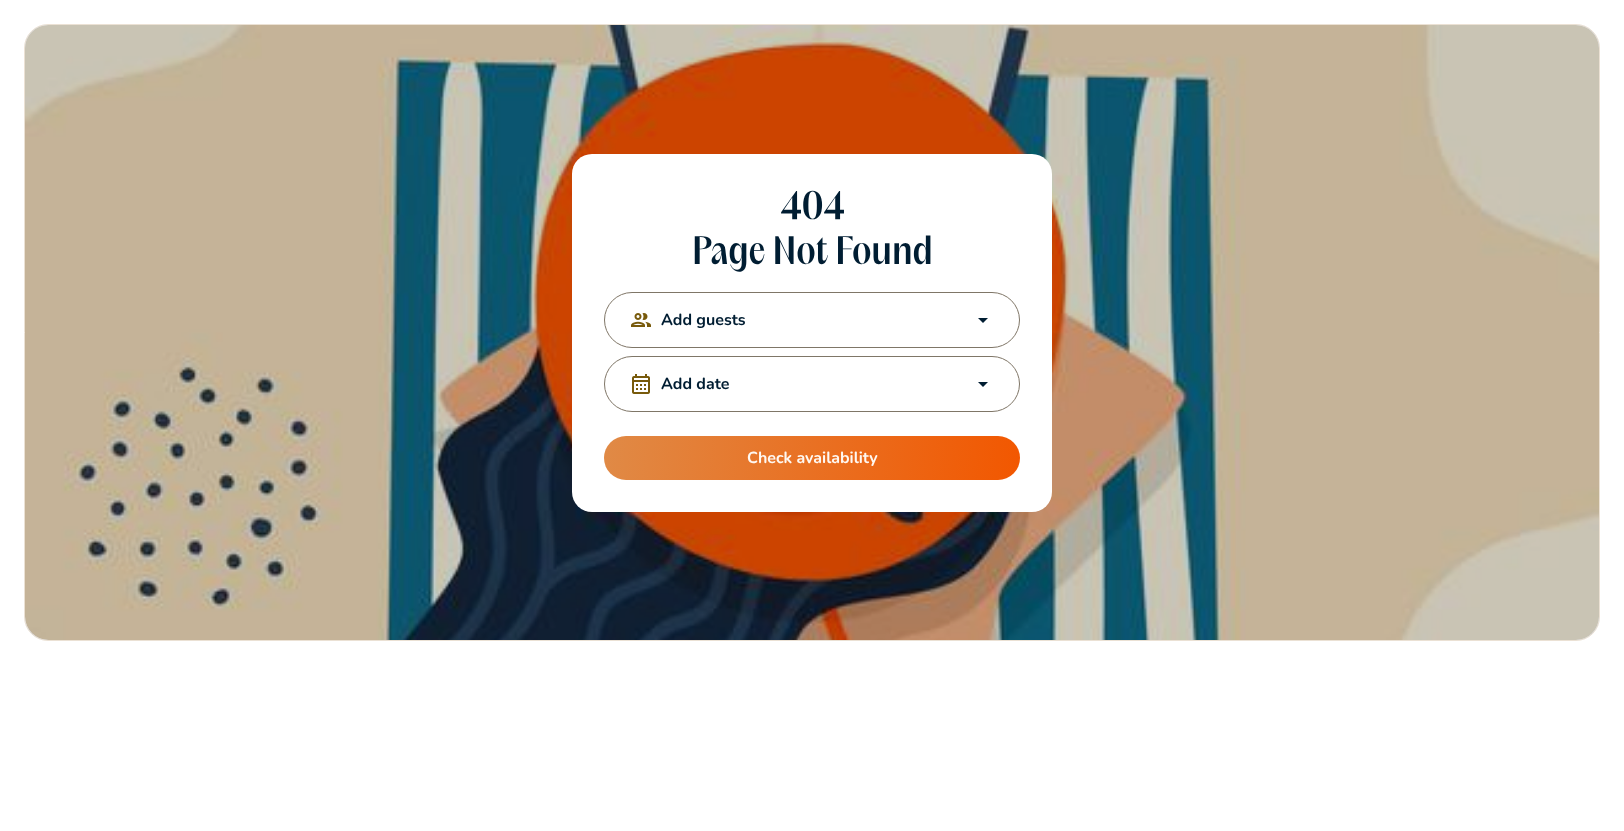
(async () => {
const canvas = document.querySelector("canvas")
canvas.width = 1624
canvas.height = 831
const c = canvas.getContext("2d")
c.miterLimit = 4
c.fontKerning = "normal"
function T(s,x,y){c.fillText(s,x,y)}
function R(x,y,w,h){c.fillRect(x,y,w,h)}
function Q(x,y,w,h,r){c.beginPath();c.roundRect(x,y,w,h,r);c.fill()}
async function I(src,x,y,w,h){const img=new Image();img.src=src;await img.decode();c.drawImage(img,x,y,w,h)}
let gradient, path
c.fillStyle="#fff"
R(0,0,1624,831)
c.beginPath()
c.roundRect(24.5,24.5,1575,616,23.5)
c.strokeStyle="#ebe1d4"
c.stroke()
await I("1.png",25,25,1574,615)
c.fillStyle="#00000033"
Q(25,25,1574,615,23)
c.fillStyle="#fff"
Q(572,154,480,358,20)
c.font="600 36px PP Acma"
c.fillStyle="#001d32"
T("404",780,219)
T("Page Not Found",692,264)
c.beginPath()
c.roundRect(604.5,292.5,415,55,27.5)
c.strokeStyle="#7f7667"
c.stroke()
await I("2.png",631,313,20,14)
c.font="bold 16px Nunito"
T("Add guests",661,325)
path = new Path2D("M983 323l-5-5h10z")
c.fill(path)
c.beginPath()
c.roundRect(604.5,356.5,415,55,27.5)
c.stroke()
await I("3.png",632,374,18,20)
T("Add date",661,389)
path = new Path2D("M983 387l-5-5h10z")
c.fill(path)
gradient = c.createLinearGradient(604,436,1020,480)
gradient.addColorStop(0,"#e08a46")
gradient.addColorStop(1,"#f25700")
c.fillStyle = gradient
Q(604,436,416,44,22)
c.fillStyle="#fff8f2"
T("Check availability",747,463)
})()
